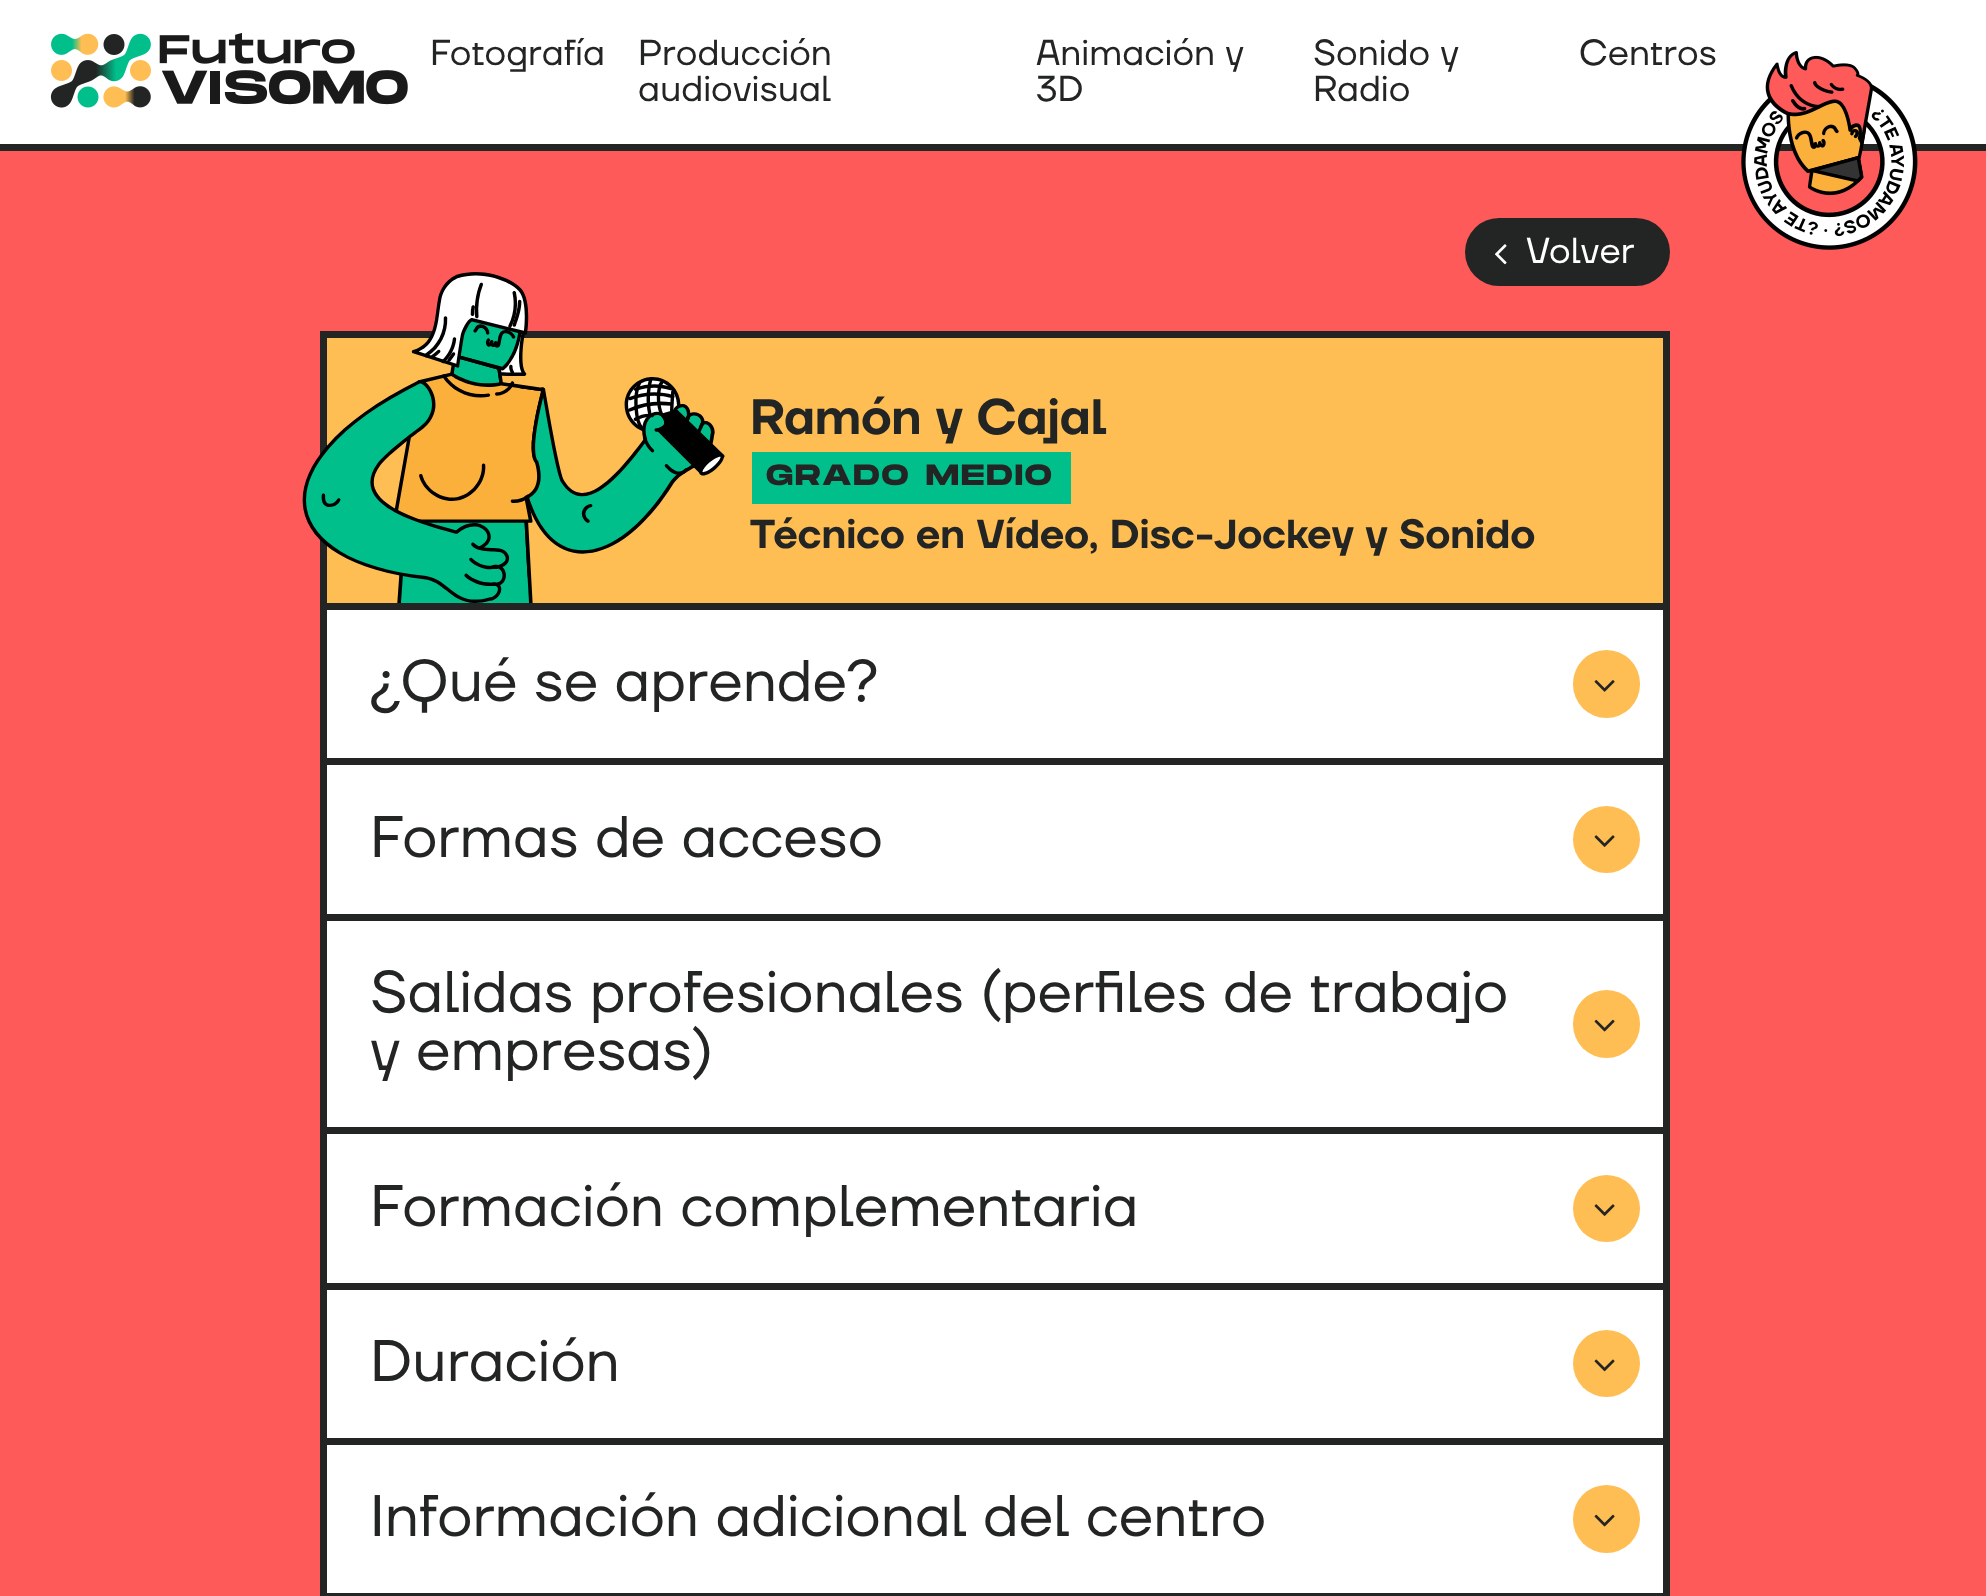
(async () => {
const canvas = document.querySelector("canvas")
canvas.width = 1986
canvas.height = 1596
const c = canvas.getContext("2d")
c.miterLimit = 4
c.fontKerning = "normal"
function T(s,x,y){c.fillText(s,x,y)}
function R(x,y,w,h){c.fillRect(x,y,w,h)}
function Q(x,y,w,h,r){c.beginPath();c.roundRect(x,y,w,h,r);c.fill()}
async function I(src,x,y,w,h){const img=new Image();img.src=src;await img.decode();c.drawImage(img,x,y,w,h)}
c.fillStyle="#ff5a5a"
R(0,0,1986,1596)
c.fillStyle="#fff"
R(0,0,1986,144)
c.fillStyle="#222524"
R(0,144,1986,7)
await I("1.png",50,32,358,76)
c.font="36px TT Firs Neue"
T("Fotografía",430,65)
T("Producción",638,65)
T("audiovisual",638,101)
T("Animación y",1036,65)
T("3D",1036,101)
T("Sonido y",1313,65)
T("Radio",1313,101)
T("Centros",1579,65)
await I("3.png",1745,103,168,143)
await I("2.png",1741,51,177,199)
Q(1465,218,205,68,34)
await I("4.png",1495,244,12,21)
c.fillStyle="#fff"
T("Volver",1526,263)
c.fillStyle="#ffbe53"
R(327,338,1336,265)
c.fillStyle="#222524"
R(320,331,1350,7)
R(1663,331,7,1265)
R(320,331,7,272)
await I("5.png",302,272,423,331)
c.font="600 49.5px TT Firs Neue"
T("Ramón y Cajal",750,434)
c.fillStyle="#00bf8b"
R(752,452,319,52)
c.letterSpacing="2.25px"
c.font="bold 29.25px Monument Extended"
c.fillStyle="#222524"
T("GRADO MEDIO",766,485)
c.letterSpacing="0px"
c.font="600 40.5px TT Firs Neue"
T("Técnico en Vídeo, Disc-Jockey y Sonido",750,548)
c.fillStyle="#fff"
R(327,610,1336,983)
c.fillStyle="#222524"
R(320,1593,1350,3)
R(320,603,7,993)
R(326,603,1337,7)
c.font="58.5px TT Firs Neue"
T("¿Qué se aprende?",370,701)
c.fillStyle="#ffbe53"
Q(1573,650,67,68,33.5)
await I("6.png",1594,680,21,12)
c.fillStyle="#222524"
R(326,758,1337,7)
T("Formas de acceso",370,857)
c.fillStyle="#ffbe53"
c.beginPath()
c.arc(1606.5,839.5,33.5,0,7)
c.fill()
await I("7.png",1594,835,21,12)
c.fillStyle="#222524"
R(326,914,1337,7)
T("Salidas profesionales (perfiles de trabajo",370,1012)
T("y empresas)",370,1070)
c.fillStyle="#ffbe53"
Q(1573,990,67,68,33.5)
await I("8.png",1594,1019,21,13)
c.fillStyle="#222524"
R(326,1127,1337,7)
T("Formación complementaria",370,1226)
c.fillStyle="#ffbe53"
c.beginPath()
c.arc(1606.5,1208.5,33.5,0,7)
c.fill()
await I("7.png",1594,1204,21,12)
c.fillStyle="#222524"
R(326,1283,1337,7)
T("Duración",370,1381)
c.fillStyle="#ffbe53"
c.beginPath()
c.arc(1606.5,1363.5,33.5,0,7)
c.fill()
await I("9.png",1594,1359,21,13)
c.fillStyle="#222524"
R(326,1438,1337,7)
T("Información adicional del centro",370,1536)
c.fillStyle="#ffbe53"
Q(1573,1485,67,68,33.5)
await I("8.png",1594,1514,21,13)
})()
